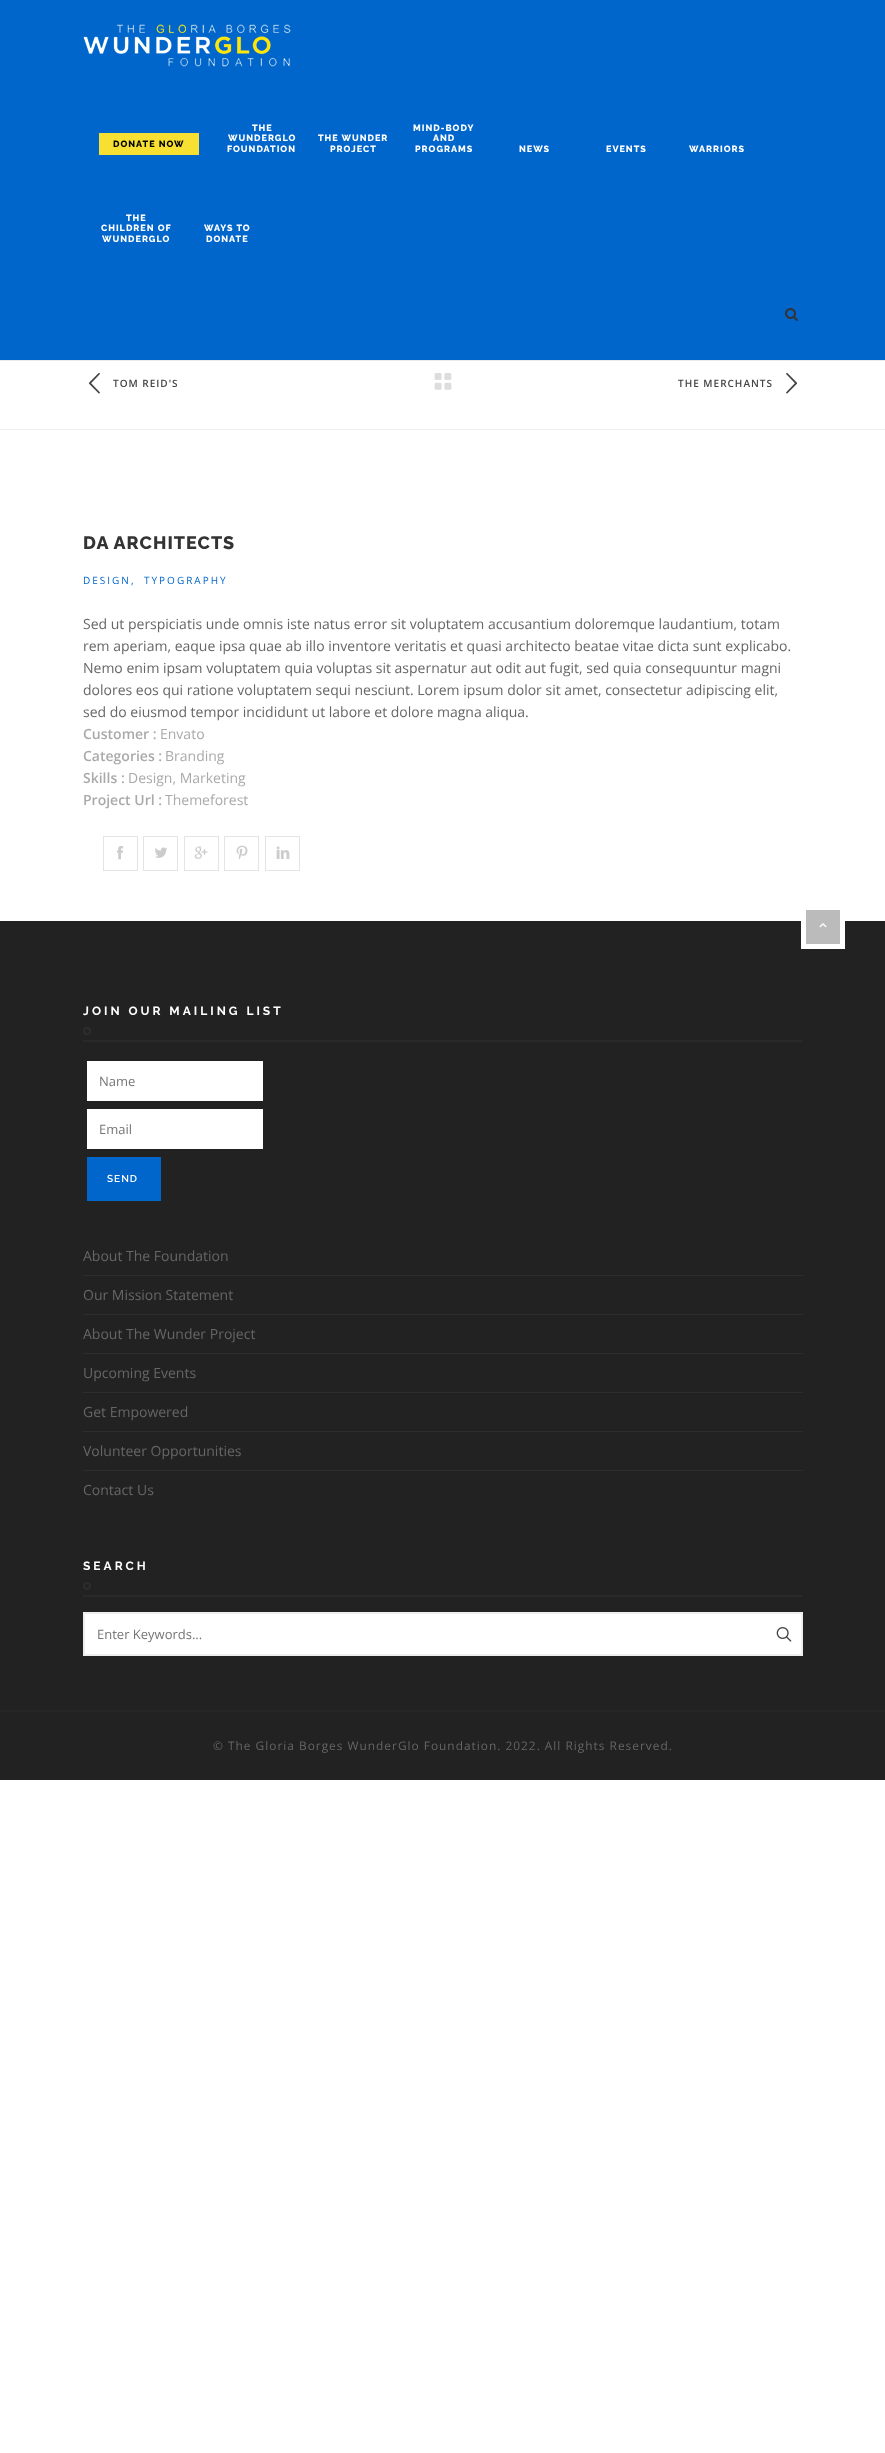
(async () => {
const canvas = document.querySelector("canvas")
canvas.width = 885
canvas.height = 2453
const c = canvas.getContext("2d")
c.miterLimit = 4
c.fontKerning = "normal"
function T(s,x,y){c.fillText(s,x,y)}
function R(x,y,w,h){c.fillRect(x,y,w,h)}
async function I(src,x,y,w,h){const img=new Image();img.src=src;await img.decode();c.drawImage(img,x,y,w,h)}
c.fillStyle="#fff"
R(0,0,885,2453)
c.fillStyle="#00000014"
c.filter="blur(0.5px)"
c.beginPath()
c.rect(0,1,885,360)
c.fill()
c.filter="none"
c.fillStyle="#06c"
R(0,0,885,360)
await I("1.png",83,24,208,43)
c.fillStyle="#f7e031"
R(99,133,100,22)
c.letterSpacing="1px"
c.font="800 9px Raleway"
c.fillStyle="#000"
T("DONATE NOW",113,147)
c.fillStyle="#fff"
T("THE",252,131)
T("WUNDERGLO",228,141)
T("FOUNDATION",227,152)
T("THE WUNDER",318,141)
T("PROJECT",330,152)
T("MIND-BODY",413,131)
T("AND",433,141)
T("PROGRAMS",415,152)
T("NEWS",519,152)
T("EVENTS",606,152)
T("WARRIORS",689,152)
T("THE",126,221)
T("CHILDREN OF",101,231)
T("WUNDERGLO",102,242)
T("WAYS TO",204,231)
T("DONATE",206,242)
await I("2.png",785,308,13,13)
c.fillStyle="#eee"
R(0,429,885,1)
await I("3.png",88,372,12,22)
c.font="600 10px Open Sans"
c.fillStyle="#444"
T("TOM REID'S",113,387)
await I("4.png",434,373,18,17)
T("THE MERCHANTS",678,387)
await I("5.png",786,372,12,22)
c.font="800 18px Raleway"
c.fillStyle="#333"
T("DA ARCHITECTS",83,549)
c.letterSpacing="2px"
c.font="10px Open Sans"
c.fillStyle="#06c"
T("DESIGN,",83,584)
T("TYPOGRAPHY",144,584)
c.letterSpacing="0px"
c.font="14px Open Sans"
c.fillStyle="#666"
T("Sed ut perspiciatis unde omnis iste natus error sit voluptatem accusantium doloremque laudantium, totam",83,629)
T("rem aperiam, eaque ipsa quae ab illo inventore veritatis et quasi architecto beatae vitae dicta sunt explicabo.",83,651)
T("Nemo enim ipsam voluptatem quia voluptas sit aspernatur aut odit aut fugit, sed quia consequuntur magni",83,673)
T("dolores eos qui ratione voluptatem sequi nesciunt. Lorem ipsum dolor sit amet, consectetur adipiscing elit,",83,695)
T("sed do eiusmod tempor incididunt ut labore et dolore magna aliqua.",83,717)
c.font="600 14px Open Sans"
c.fillStyle="#aaa"
T("Customer :",83,739)
c.font="14px Open Sans"
T("Envato",160,739)
c.font="600 14px Open Sans"
T("Categories :",83,761)
c.font="14px Open Sans"
T("Branding",165,761)
c.font="600 14px Open Sans"
T("Skills :",83,783)
c.font="14px Open Sans"
T("Design, Marketing",128,783)
c.font="600 14px Open Sans"
T("Project Url :",83,805)
c.font="14px Open Sans"
T("Themeforest",165,805)
c.strokeStyle="#e4e4e4"
c.strokeRect(103.5,836.5,34,34)
await I("6.png",116,846,8,14)
c.strokeRect(143.5,836.5,34,34)
await I("7.png",155,847,12,11)
c.strokeRect(184.5,836.5,34,34)
await I("8.png",194,846,14,13)
c.strokeRect(224.5,836.5,34,34)
await I("9.png",236,845,12,15)
c.strokeRect(265.5,836.5,34,34)
await I("10.png",276,846,14,13)
c.fillStyle="#222"
R(0,921,885,789)
c.fillStyle="#bbb"
c.beginPath()
c.rect(803.5,907.5,39,39)
c.fill()
c.strokeStyle="#fff"
c.lineWidth=5
c.stroke()
await I("11.png",819,923,8,5)
c.fillStyle="#292929"
R(83,1040,720,2)
c.letterSpacing="3px"
c.font="bold 12px Raleway"
c.fillStyle="#fff"
T("JOIN OUR MAILING LIST",83,1015)
c.beginPath()
c.arc(87,1031,3,0,7)
c.strokeStyle="#2d2d2d"
c.lineWidth=2
c.stroke()
R(87,1061,176,40)
c.letterSpacing="0px"
c.font="13px Open Sans"
c.fillStyle="#757575"
T("Name",99,1086)
c.fillStyle="#fff"
R(87,1109,176,40)
c.fillStyle="#757575"
T("Email",99,1134)
c.fillStyle="#06c"
R(87,1157,74,44)
c.letterSpacing="1px"
c.font="600 10px Raleway"
c.fillStyle="#fff"
T("SEND",107,1182)
c.fillStyle="#2d2d2d"
R(83,1275,720,1)
c.letterSpacing="0px"
c.font="14px Open Sans"
c.fillStyle="#666"
T("About The Foundation",83,1261)
c.fillStyle="#2d2d2d"
R(83,1314,720,1)
c.fillStyle="#666"
T("Our Mission Statement",83,1300)
c.fillStyle="#2d2d2d"
R(83,1353,720,1)
c.fillStyle="#666"
T("About The Wunder Project",83,1339)
c.fillStyle="#2d2d2d"
R(83,1392,720,1)
c.fillStyle="#666"
T("Upcoming Events",83,1378)
c.fillStyle="#2d2d2d"
R(83,1431,720,1)
c.fillStyle="#666"
T("Get Empowered",83,1417)
c.fillStyle="#2d2d2d"
R(83,1470,720,1)
c.fillStyle="#666"
T("Volunteer Opportunities",83,1456)
T("Contact Us",83,1495)
c.fillStyle="#292929"
R(83,1595,720,2)
c.letterSpacing="3px"
c.font="bold 12px Raleway"
c.fillStyle="#fff"
T("SEARCH",83,1570)
c.beginPath()
c.arc(87,1586,3,0,7)
c.stroke()
c.beginPath()
c.rect(84,1613,718,42)
c.fill()
c.strokeStyle="#eee"
c.stroke()
c.letterSpacing="0px"
c.font="13px Open Sans"
c.fillStyle="#757575"
T("Enter Keywords...",97,1639)
await I("12.png",776,1627,16,15)
c.fillStyle="#222"
R(0,1712,885,68)
c.fillStyle="#262626"
R(0,1710,885,2)
c.letterSpacing="1px"
c.font="11.9px Open Sans"
c.fillStyle="#666"
T("© The Gloria Borges WunderGlo Foundation. 2022. All Rights Reserved.",213,1750)
})()
